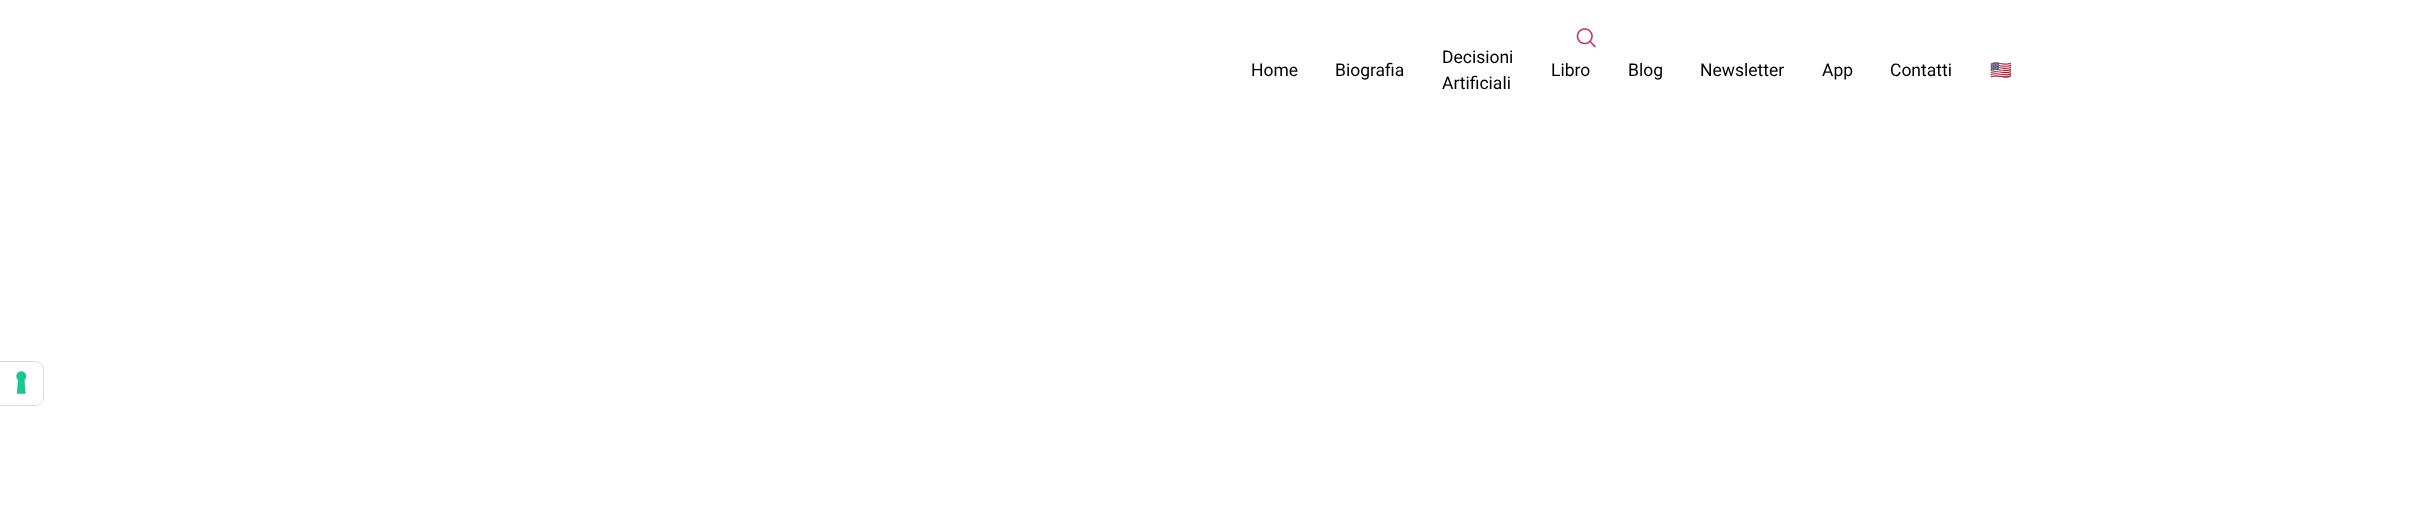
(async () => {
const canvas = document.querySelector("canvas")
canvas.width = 2413
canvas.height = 511
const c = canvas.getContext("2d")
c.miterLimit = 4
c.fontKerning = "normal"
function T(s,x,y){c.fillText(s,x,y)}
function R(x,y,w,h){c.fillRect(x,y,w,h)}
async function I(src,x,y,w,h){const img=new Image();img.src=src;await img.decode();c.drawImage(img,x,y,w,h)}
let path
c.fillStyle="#fff"
R(0,0,2413,511)
await I("1.png",1576,28,20,20)
c.font="17.5px Roboto"
c.fillStyle="#000"
T("Home",1251,76)
T("Biografia",1335,76)
T("Decisioni",1442,63)
T("Artificiali",1442,89)
T("Libro",1551,76)
T("Blog",1628,76)
T("Newsletter",1700,76)
T("App",1822,76)
T("Contatti",1890,76)
c.font="17.5px Noto Color Emoji"
T("🇺🇸",1990,76)
path = new Path2D("M-.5 361.5h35.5c4.5 0 8.5 4 8.5 8.5v27c0 4.5-4 8.5-8.5 8.5h-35.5z")
c.strokeStyle="#d9d9d9"
c.stroke(path)
c.fillStyle="#fff"
c.beginPath()
c.roundRect(0,363,43,42,[0,8,8,0])
c.fill()
await I("2.png",16,371,11,23)
})()
